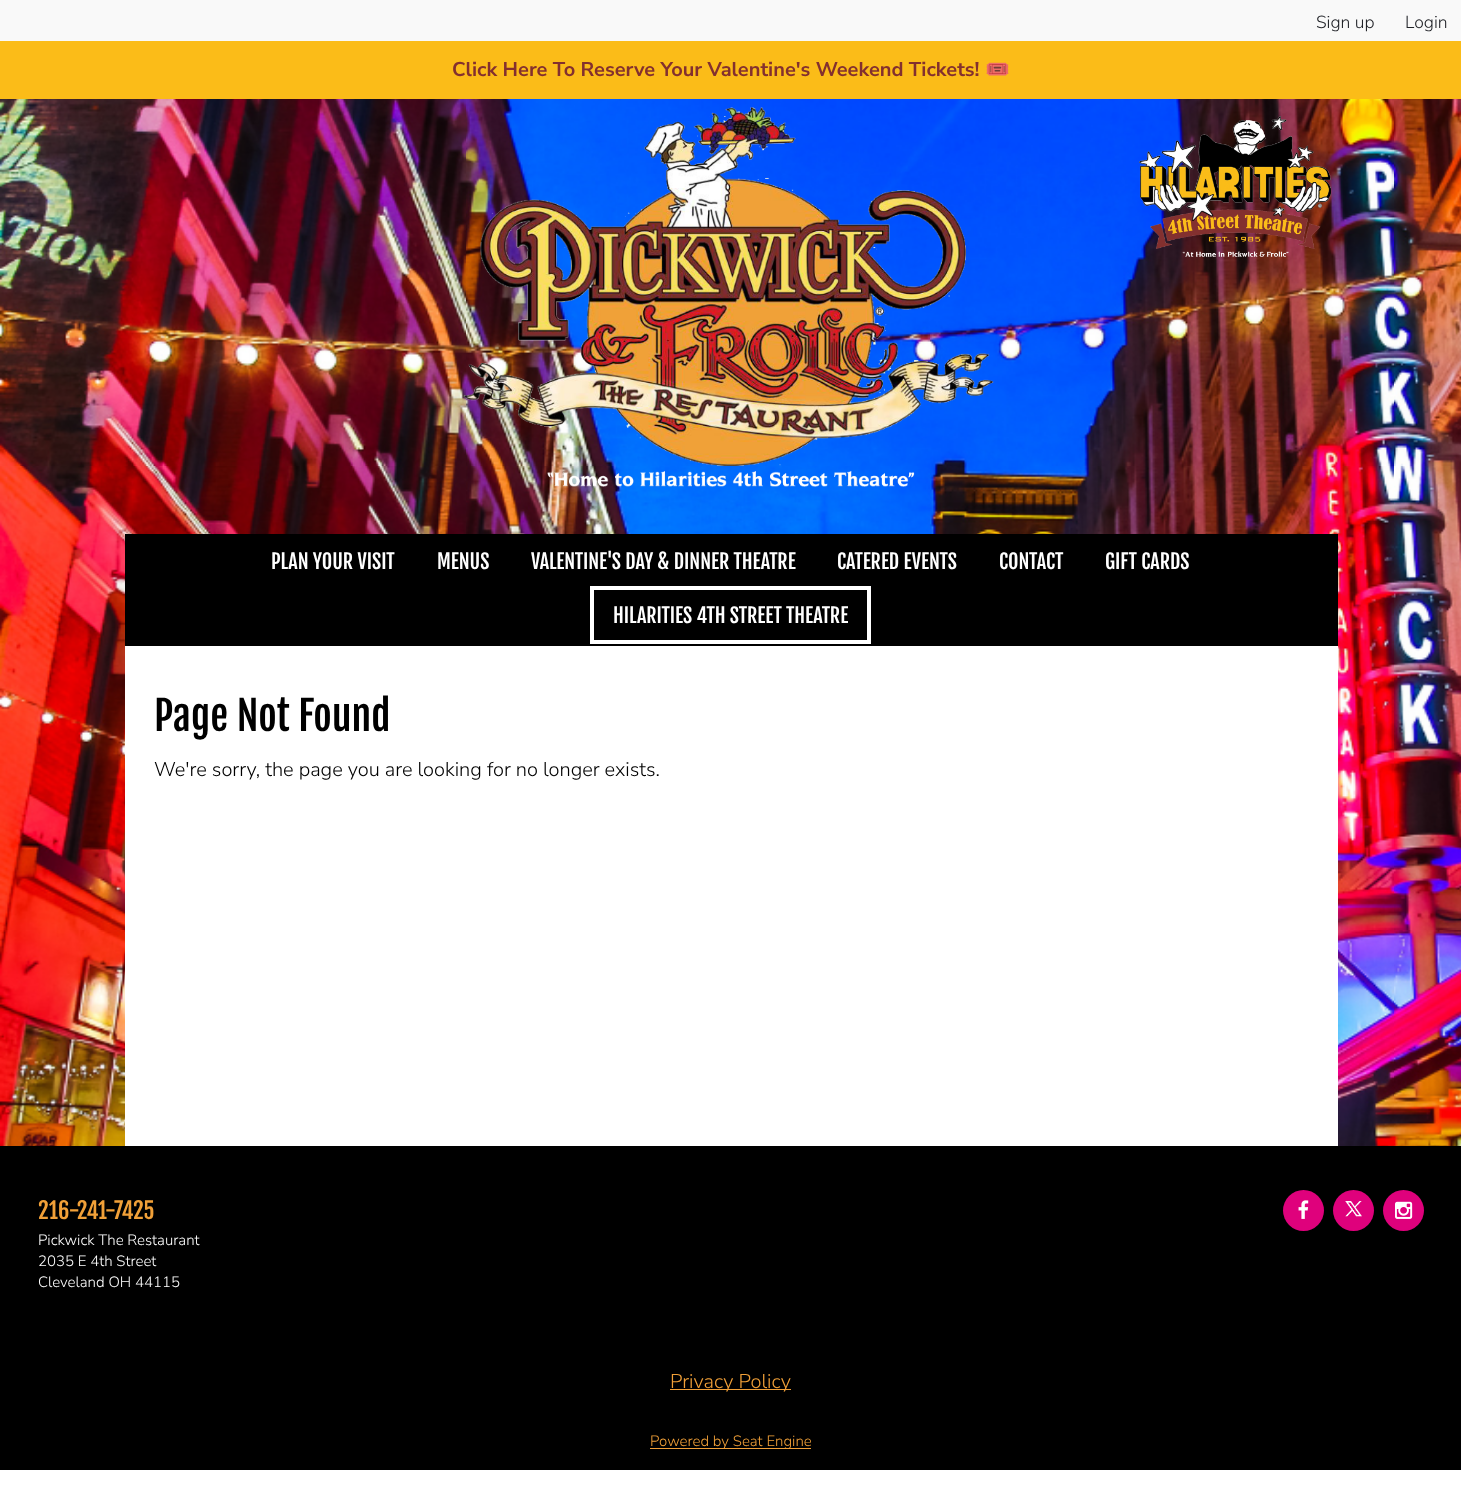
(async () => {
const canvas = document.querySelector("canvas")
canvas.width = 1461
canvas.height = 1494
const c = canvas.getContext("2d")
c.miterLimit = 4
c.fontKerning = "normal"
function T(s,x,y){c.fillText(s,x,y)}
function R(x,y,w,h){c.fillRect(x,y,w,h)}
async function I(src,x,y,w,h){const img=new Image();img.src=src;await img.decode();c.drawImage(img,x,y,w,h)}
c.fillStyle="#fff"
R(0,0,1461,1494)
await I("1.png",0,99,1461,1047)
c.fillStyle="#f9f9f9"
R(0,0,1461,41)
c.font="300 17.5px Nunito Sans"
c.fillStyle="#202227"
T("Sign up",1316,28)
T("Login",1405,28)
c.fillStyle="#fbbc18"
R(0,41,1461,58)
c.font="bold 20px Nunito Sans"
c.fillStyle="#83302f"
T("Click Here To Reserve Your Valentine's Weekend Tickets!",452,76)
c.font="bold 20px Noto Color Emoji"
T("🎟️",985,76)
await I("2.png",463,107,531,380)
await I("3.png",1139,116,192,141)
c.fillStyle="#000"
R(125,534,1213,112)
c.font="20px Fjalla One"
c.fillStyle="#fff"
T("PLAN YOUR VISIT",271,569)
T("MENUS",437,569)
T("VALENTINE'S DAY & DINNER THEATRE",531,569)
T("CATERED EVENTS",837,569)
T("CONTACT",999,569)
T("GIFT CARDS",1105,569)
c.strokeStyle="#fff"
c.lineWidth=4
c.strokeRect(592,588,277,54)
T("HILARITIES 4TH STREET THEATRE",613,623)
R(125,646,1213,500)
c.font="40px Fjalla One"
c.fillStyle="#000"
T("Page Not Found",154,731)
c.font="300 20px Nunito Sans"
T("We're sorry, the page you are looking for no longer exists.",154,776)
R(0,1146,1461,324)
c.font="22.5px Fjalla One"
c.fillStyle="#f1a038"
T("216-241-7425",38,1219)
c.font="300 15px Nunito Sans"
c.fillStyle="#fff"
T("Pickwick The Restaurant",38,1245)
T("2035 E 4th Street",38,1266)
T("Cleveland OH 44115",38,1287)
c.fillStyle="#df017c"
c.beginPath()
c.arc(1303.5,1210.5,20.5,0,7)
c.fill()
await I("4.png",1298,1200,11,19)
c.beginPath()
c.arc(1353.5,1210.5,20.5,0,7)
c.fill()
await I("5.png",1345,1201,17,16)
c.beginPath()
c.arc(1403.5,1210.5,20.5,0,7)
c.fill()
await I("6.png",1395,1201,18,18)
c.fillStyle="#f1a038"
R(670,1389,121,1)
c.font="300 20px Nunito Sans"
T("Privacy Policy",670,1388)
R(650,1448,161,1)
c.font="300 15px Nunito Sans"
T("Powered by Seat Engine",650,1446)
})()
